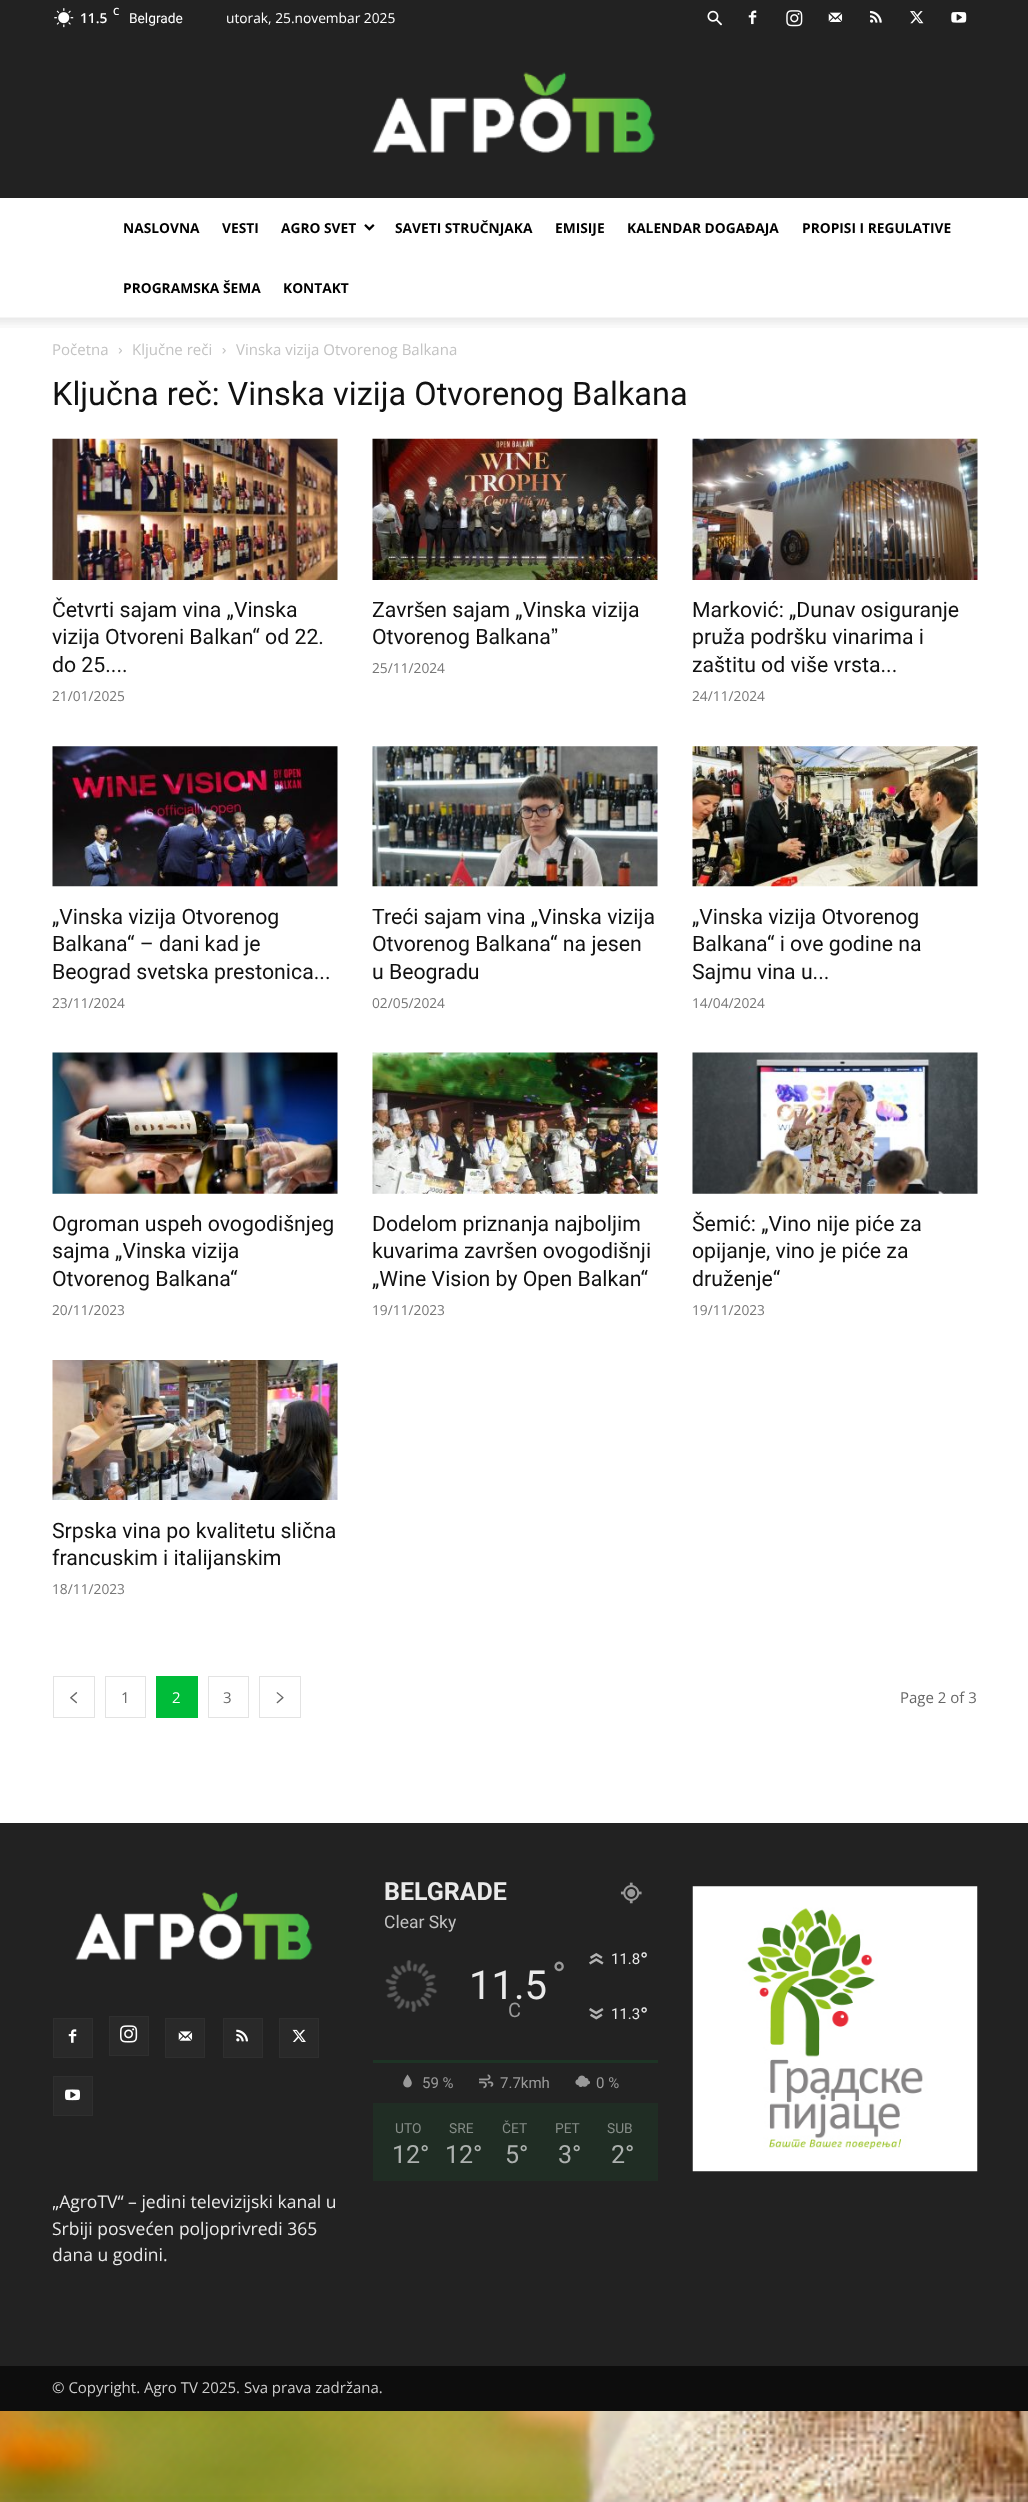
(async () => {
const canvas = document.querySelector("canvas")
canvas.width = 1028
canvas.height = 2502
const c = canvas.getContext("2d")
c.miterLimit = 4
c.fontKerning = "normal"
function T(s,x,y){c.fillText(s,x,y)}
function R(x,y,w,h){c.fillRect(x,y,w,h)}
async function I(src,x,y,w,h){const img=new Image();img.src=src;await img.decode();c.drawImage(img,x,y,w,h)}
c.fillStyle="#fff"
R(0,0,1028,2502)
c.fillStyle="#222"
R(0,0,1028,198)
await I("1.png",371,72,285,81)
await I("2.png",54,8,20,20)
c.font="600 10px Open Sans"
c.fillStyle="#fff"
T("C",113,15)
c.font="600 13.75px Open Sans"
T("11.5",80,23)
c.font="13.75px Roboto"
T("Belgrade",129,23)
c.font="13.75px Open Sans"
T("utorak, 25.novembar 2025",226,23)
await I("3.png",707,10,15,16)
await I("4.png",748,10,9,15)
await I("5.png",786,10,17,17)
await I("6.png",828,12,15,10)
await I("7.png",870,10,12,13)
await I("8.png",910,11,14,13)
await I("9.png",951,12,16,11)
c.font="bold 13.75px Open Sans"
c.fillStyle="#000"
T("NASLOVNA",123,233)
T("VESTI",222,233)
T("AGRO SVET",281,233)
await I("10.png",364,224,11,7)
T("SAVETI STRUČNJAKA",395,233)
T("EMISIJE",555,233)
T("KALENDAR DOGAĐAJA",627,233)
T("PROPISI I REGULATIVE",802,233)
T("PROGRAMSKA ŠEMA",123,293)
T("KONTAKT",283,293)
await I("11.png",0,317,1028,11)
c.font="15px Open Sans"
c.fillStyle="#c3c3c3"
T("Početna",52,355)
await I("12.png",118,347,4,7)
T("Ključne reči",132,355)
await I("13.png",222,348,4,6)
T("Vinska vizija Otvorenog Balkana",236,355)
c.font="32.5px Roboto"
c.fillStyle="#111"
T("Ključna reč: Vinska vizija Otvorenog Balkana",52,405)
await I("14.png",52,438,286,142)
c.font="21.25px Roboto"
T("Četvrti sajam vina „Vinska",52,617)
T("vizija Otvoreni Balkan“ od 22.",52,644)
T("do 25....",52,672)
c.font="13.75px Open Sans"
c.fillStyle="#767676"
T("21/01/2025",52,701)
await I("15.png",372,438,286,142)
c.font="21.25px Roboto"
c.fillStyle="#111"
T("Zavr",372,617)
c.font="21.25px Liberation Sans"
T("š",414,617)
c.font="21.25px Roboto"
T("en sajam „Vinska vizija",424,617)
T("Otvorenog Balkana",372,644)
c.font="21.25px Liberation Sans"
T("ˮ",551,644)
c.font="13.75px Open Sans"
c.fillStyle="#767676"
T("25/11/2024",372,673)
await I("16.png",692,438,286,142)
c.font="21.25px Roboto"
c.fillStyle="#111"
T("Marković: „Dunav osiguranje",692,617)
T("pruža podršku vinarima i",692,644)
T("zaštitu od više vrsta...",692,672)
c.font="13.75px Open Sans"
c.fillStyle="#767676"
T("24/11/2024",692,701)
await I("17.png",52,746,286,141)
c.font="21.25px Roboto"
c.fillStyle="#111"
T("„Vinska vizija Otvorenog",52,924)
T("Balkana“ – dani kad je",52,951)
T("Beograd svetska prestonica...",52,979)
c.font="13.75px Open Sans"
c.fillStyle="#767676"
T("23/11/2024",52,1008)
await I("18.png",372,746,286,141)
c.font="21.25px Roboto"
c.fillStyle="#111"
T("Treći sajam vina „Vinska vizija",372,924)
T("Otvorenog Balkana“ na jesen",372,951)
T("u Beogradu",372,979)
c.font="13.75px Open Sans"
c.fillStyle="#767676"
T("02/05/2024",372,1008)
await I("19.png",692,746,286,141)
c.font="21.25px Roboto"
c.fillStyle="#111"
T("„Vinska vizija Otvorenog",692,924)
T("Balkana“ i ove godine na",692,951)
T("Sajmu vina u...",692,979)
c.font="13.75px Open Sans"
c.fillStyle="#767676"
T("14/04/2024",692,1008)
await I("20.png",52,1052,286,142)
c.font="21.25px Roboto"
c.fillStyle="#111"
T("Ogroman uspeh ovogodišnjeg",52,1231)
T("sajma „Vinska vizija",52,1258)
T("Otvorenog Balkana“",52,1286)
c.font="13.75px Open Sans"
c.fillStyle="#767676"
T("20/11/2023",52,1315)
await I("21.png",372,1052,286,142)
c.font="21.25px Roboto"
c.fillStyle="#111"
T("Dodelom priznanja najboljim",372,1231)
T("kuvarima završen ovogodišnji",372,1258)
T("„Wine Vision by Open Balkan“",372,1286)
c.font="13.75px Open Sans"
c.fillStyle="#767676"
T("19/11/2023",372,1315)
await I("22.png",692,1052,286,142)
c.font="21.25px Roboto"
c.fillStyle="#111"
T("Šemić: „Vino nije piće za",692,1231)
T("opijanje, vino je piće za",692,1258)
T("druženje“",692,1286)
c.font="13.75px Open Sans"
c.fillStyle="#767676"
T("19/11/2023",692,1315)
await I("23.png",52,1360,286,140)
c.font="21.25px Roboto"
c.fillStyle="#111"
T("Srpska vina po kvalitetu slična",52,1538)
T("francuskim i italijanskim",52,1565)
c.font="13.75px Open Sans"
c.fillStyle="#767676"
T("18/11/2023",52,1594)
c.strokeStyle="#e3e3e3"
c.strokeRect(53.5,1676.5,41,41)
await I("24.png",70,1692,8,12)
c.strokeRect(105.5,1676.5,40,41)
c.font="15px Open Sans"
c.fillStyle="#666"
T("1",121,1703)
c.fillStyle="#00bc39"
R(156,1676,42,42)
c.fillStyle="#fff"
T("2",172,1703)
c.strokeRect(208.5,1676.5,40,41)
c.fillStyle="#666"
T("3",223,1703)
c.strokeRect(259.5,1676.5,41,41)
await I("25.png",276,1692,8,12)
T("Page 2 of 3",900,1703)
c.fillStyle="#222"
R(0,1823,1028,543)
c.font="bold 25px Roboto"
c.fillStyle="#eaeaea"
T("BELGRADE",384,1900)
await I("26.png",620,1882,22,22)
c.font="17.5px Roboto"
c.fillStyle="#c3c3c3"
T("Clear Sky",384,1928)
await I("27.png",385,1960,53,52)
c.font="38px Roboto"
c.fillStyle="#9a9a9a"
T("°",552,1989)
c.font="40px Roboto"
c.fillStyle="#eaeaea"
T("11.5",469,1999)
c.font="20px Roboto"
c.fillStyle="#9a9a9a"
T("C",508,2017)
await I("28.png",589,1953,15,12)
c.font="15px Roboto"
c.fillStyle="#eaeaea"
T("11.8",611,1964)
c.font="22px Roboto"
T("°",640,1968)
await I("29.png",589,2008,15,12)
c.font="15px Roboto"
T("11.3",611,2019)
c.font="22px Roboto"
T("°",640,2023)
c.fillStyle="#1e3425"
R(373,2060,285,3)
await I("30.png",403,2074,9,14)
c.font="15px Roboto"
c.fillStyle="#9a9a9a"
T("59 %",422,2088)
await I("31.png",479,2074,15,15)
T("7.7kmh",500,2088)
await I("32.png",575,2075,15,12)
T("0 %",596,2088)
c.fillStyle="#202d24"
R(373,2103,285,78)
c.font="13.75px Roboto"
c.fillStyle="#858c87"
T("UTO",395,2133)
c.font="25px Roboto"
c.fillStyle="#adb1af"
T("12°",392,2163)
c.font="13.75px Roboto"
c.fillStyle="#858c87"
T("SRE",449,2133)
c.font="25px Roboto"
c.fillStyle="#adb1af"
T("12°",445,2163)
c.font="13.75px Roboto"
c.fillStyle="#858c87"
T("ČET",502,2133)
c.font="25px Roboto"
c.fillStyle="#adb1af"
T("5°",505,2163)
c.font="13.75px Roboto"
c.fillStyle="#858c87"
T("PET",555,2133)
c.font="25px Roboto"
c.fillStyle="#adb1af"
T("3°",558,2163)
c.font="13.75px Roboto"
c.fillStyle="#858c87"
T("SUB",607,2133)
c.font="25px Roboto"
c.fillStyle="#adb1af"
T("2°",611,2163)
await I("33.png",692,1886,286,286)
await I("34.png",75,1892,238,68)
c.fillStyle="#292929"
R(54,2019,38,38)
await I("35.png",68,2029,9,14)
c.strokeStyle="#2f2f2f"
c.strokeRect(53.5,2018.5,39,39)
R(110,2017,38,38)
await I("36.png",120,2025,18,18)
c.strokeRect(109.5,2016.5,39,39)
R(166,2019,38,38)
await I("37.png",178,2031,15,10)
c.strokeRect(165.5,2018.5,39,39)
R(224,2019,38,38)
await I("38.png",236,2029,12,13)
c.strokeRect(223.5,2018.5,39,39)
R(280,2019,38,38)
await I("39.png",292,2029,14,13)
c.strokeRect(279.5,2018.5,39,39)
R(54,2077,38,38)
await I("40.png",65,2089,15,12)
c.strokeRect(53.5,2076.5,39,39)
c.save()
c.beginPath()
c.rect(53,2189,285,105)
c.clip()
c.font="17.5px Open Sans"
c.fillStyle="#eaeaea"
T("„AgroTV“ – jedini televizijski kanal u",52,2208)
c.restore()
c.font="17.5px Open Sans"
c.fillStyle="#eaeaea"
T("Srbiji posvećen poljoprivredi 365",52,2235)
T("dana u godini.",52,2261)
c.fillStyle="#0d0d0d"
R(0,2366,1028,45)
c.font="15px Open Sans"
c.fillStyle="#ccc"
T("© Copyright. Agro TV 2025. Sva prava zadržana.",52,2393)
await I("41.png",0,2411,1028,91)
})()
